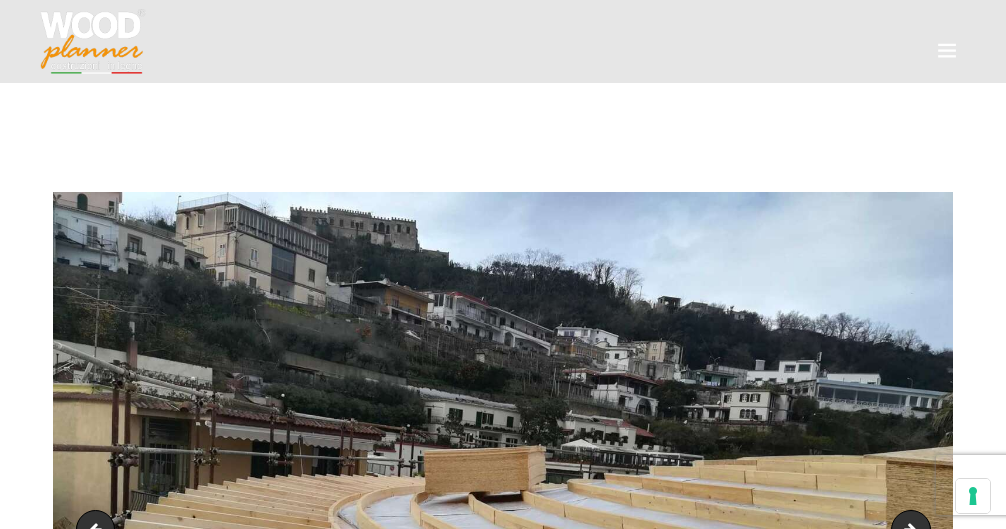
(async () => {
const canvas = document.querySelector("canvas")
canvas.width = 1006
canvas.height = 529
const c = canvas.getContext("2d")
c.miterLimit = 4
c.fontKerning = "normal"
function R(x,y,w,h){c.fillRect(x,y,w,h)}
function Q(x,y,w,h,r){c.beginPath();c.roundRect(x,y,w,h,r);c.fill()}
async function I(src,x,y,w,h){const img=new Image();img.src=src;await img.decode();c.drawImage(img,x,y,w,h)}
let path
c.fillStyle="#fff"
R(0,0,1006,529)
c.fillStyle="#e6e6e6"
R(0,0,1006,83)
await I("1.png",40,9,106,65)
await I("2.png",938,43,18,15)
await I("3.png",53,192,900,337)
c.beginPath()
c.roundRect(76.5,514.5,31,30,15)
c.strokeStyle="#000"
c.stroke()
c.fillStyle="#333"
c.beginPath()
c.roundRect(76.5,510.5,38,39,19)
c.fill()
c.stroke()
await I("4.png",90,523,12,6)
c.beginPath()
c.roundRect(899.5,514.5,31,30,15)
c.stroke()
c.beginPath()
c.arc(911,530,19.5,0,7)
c.fill()
c.stroke()
await I("5.png",904,523,12,6)
c.save()
path = new Path2D("M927 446h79v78h-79zm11 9h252c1 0 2 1 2 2v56c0 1-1 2-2 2h-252c-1 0-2-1-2-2v-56c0-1 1-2 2-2z")
c.clip(path,"evenodd")
c.fillStyle="#808080"
c.filter="blur(2.5px)"
c.beginPath()
c.roundRect(936,455,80,60,2)
c.fill()
c.filter="none"
c.restore()
c.beginPath()
c.roundRect(955.5,478.5,35,35,4.5)
c.strokeStyle="#d9d9d9"
c.stroke()
c.fillStyle="#fff"
Q(956,479,34,34,4)
await I("6.png",969,487,8,18)
})()
